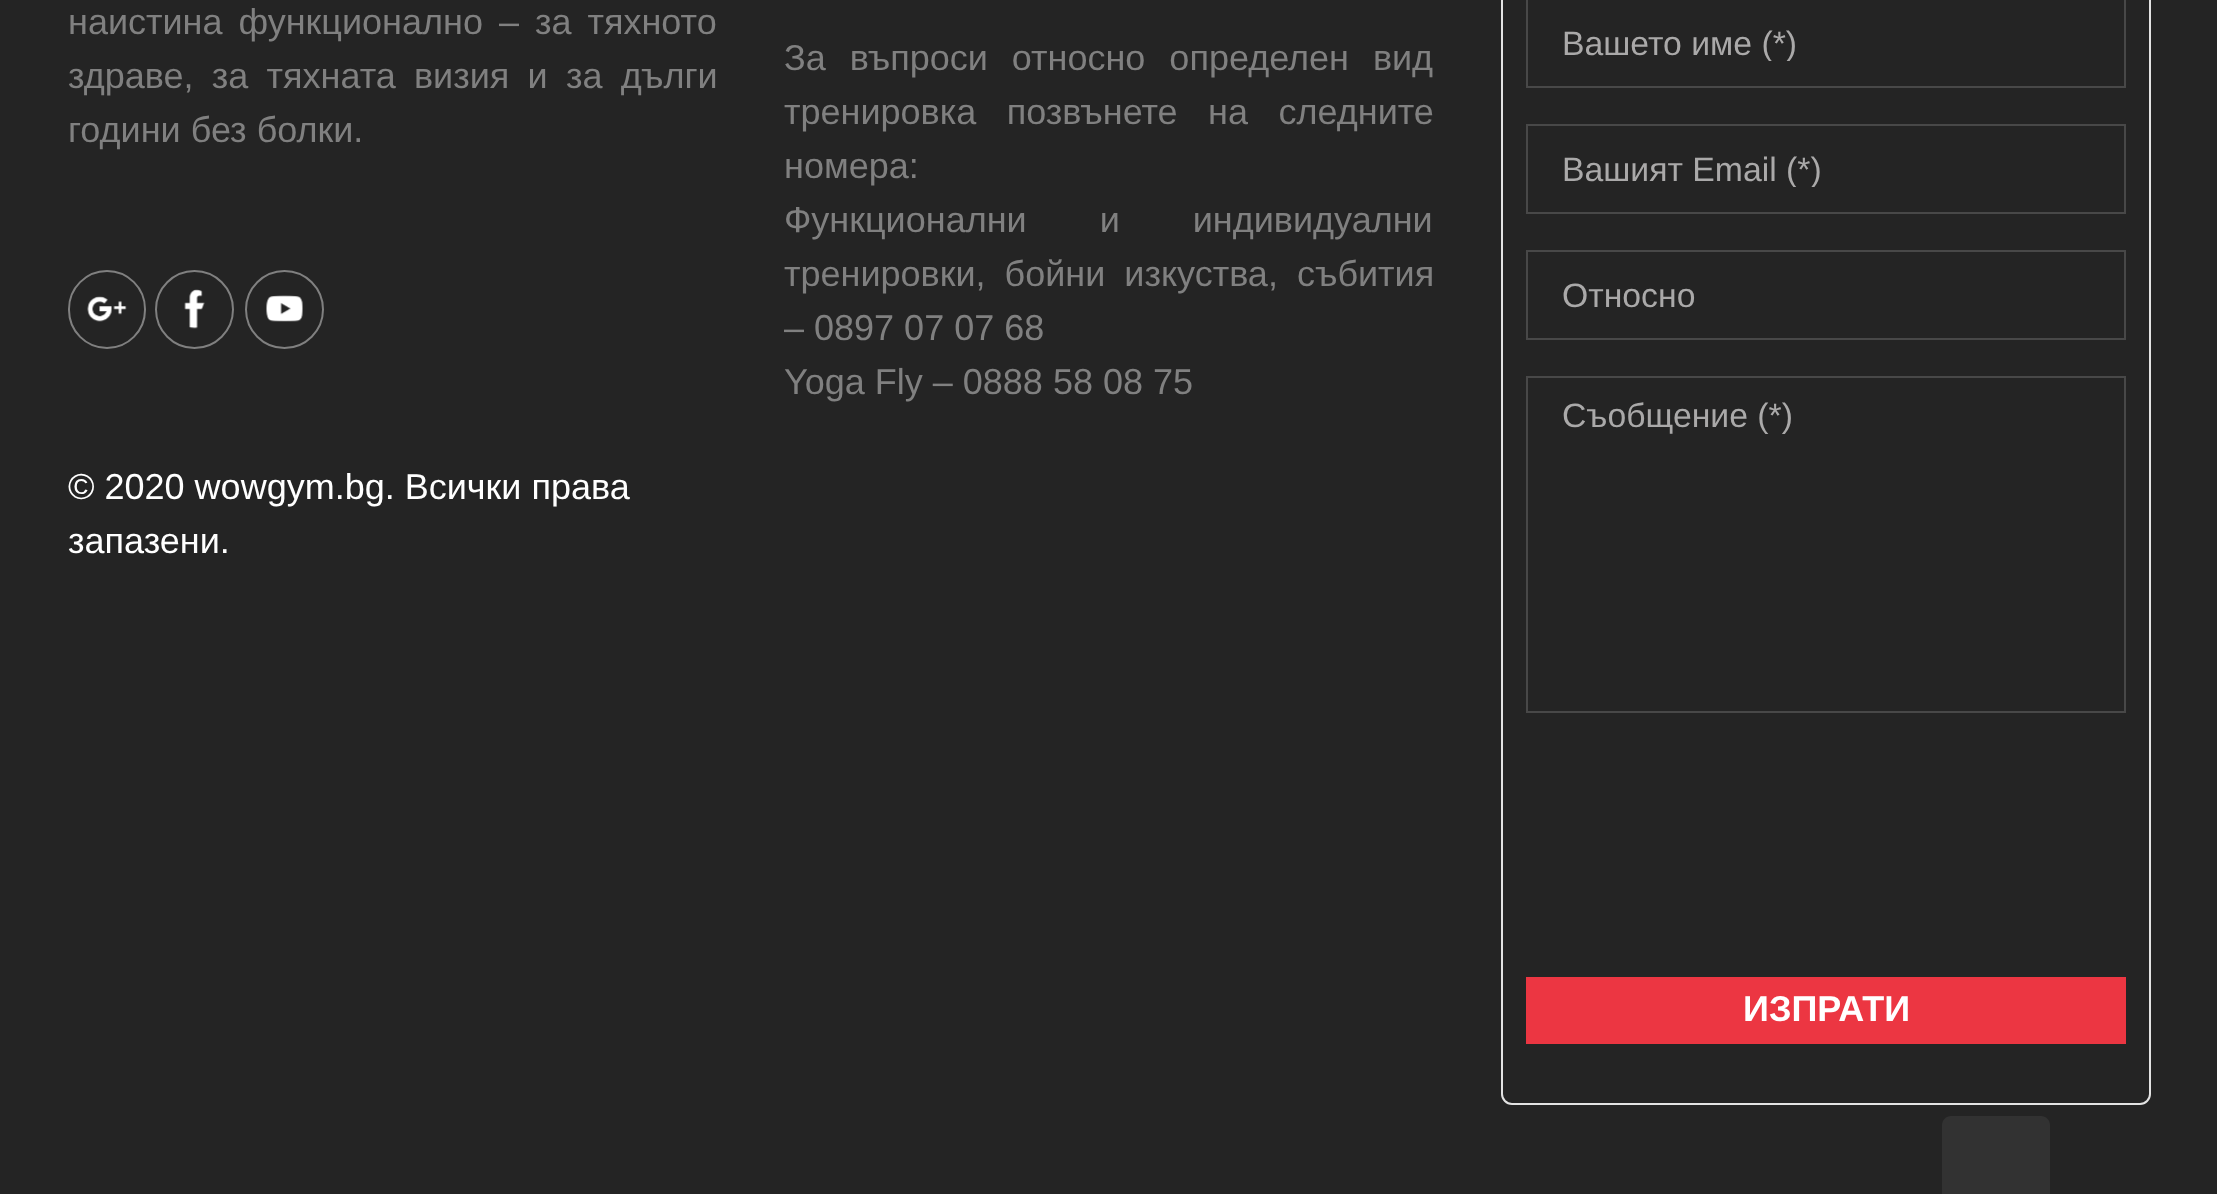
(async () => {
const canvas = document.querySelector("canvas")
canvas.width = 2217
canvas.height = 1194
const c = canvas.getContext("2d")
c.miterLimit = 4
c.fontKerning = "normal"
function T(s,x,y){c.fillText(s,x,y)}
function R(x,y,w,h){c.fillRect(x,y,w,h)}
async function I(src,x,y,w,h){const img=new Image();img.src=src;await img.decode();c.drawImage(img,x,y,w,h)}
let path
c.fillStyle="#242424"
R(0,0,2217,1194)
c.wordSpacing="6px"
c.font="36px Liberation Sans"
c.fillStyle="#808080"
T("наистина функционално – за тяхното",68,34)
c.wordSpacing="8.25px"
T("здраве, за тяхната визия и за дълги",68,88)
c.wordSpacing="0px"
T("години без болки.",68,142)
c.beginPath()
c.roundRect(69,271,76,77,38)
c.strokeStyle="#808080"
c.lineWidth=2
c.stroke()
c.beginPath()
c.arc(194.5,309.5,38.5,0,7)
c.stroke()
c.beginPath()
c.arc(284.5,309.5,38.5,0,7)
c.stroke()
await I("1.png",87,296,40,26)
await I("2.png",184,289,21,40)
await I("3.png",266,295,37,27)
c.fillStyle="#fff"
T("© 2020 wowgym.bg. Всички права",68,499)
T("запазени.",68,553)
c.wordSpacing="14px"
c.fillStyle="#808080"
T("За въпроси относно определен вид",784,70)
c.wordSpacing="20.5px"
T("тренировка позвънете на следните",784,124)
c.wordSpacing="0px"
T("номера:",784,178)
c.wordSpacing="63px"
T("Функционални и индивидуални",784,232)
c.wordSpacing="9px"
T("тренировки, бойни изкуства, събития",784,286)
c.wordSpacing="0px"
T("– 0897 07 07 68",784,340)
T("Yoga Fly – 0888 58 08 75",784,394)
c.beginPath()
c.roundRect(1502,-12,648,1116,10)
c.strokeStyle="#e3e3e3"
c.stroke()
c.strokeStyle="#484848"
c.strokeRect(1527,-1,598,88)
c.save()
c.beginPath()
c.rect(1562,23,528,38)
c.clip()
c.font="33.75px Liberation Sans"
c.fillStyle="#aaa9a9"
T("Вашето име (*)",1562,55)
c.restore()
c.strokeRect(1527,125,598,88)
c.save()
c.beginPath()
c.rect(1562,149,528,38)
c.clip()
c.font="33.75px Liberation Sans"
c.fillStyle="#aaa9a9"
T("Вашият Email (*)",1562,181)
c.restore()
c.strokeRect(1527,251,598,88)
c.font="33.75px Liberation Sans"
c.fillStyle="#aaa9a9"
T("Относно",1562,307)
c.strokeRect(1527,377,598,335)
T("Съобщение (*)",1562,427)
c.fillStyle="#ec3642"
R(1526,977,600,67)
c.font="bold 36px Liberation Sans"
c.fillStyle="#fff"
T("ИЗПРАТИ",1743,1021)
c.fillStyle="#323232"
path = new Path2D("M1951 1116h90c5 0 9 4 9 9v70h-108v-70c0-5 4-9 9-9z")
c.fill(path)
})()
